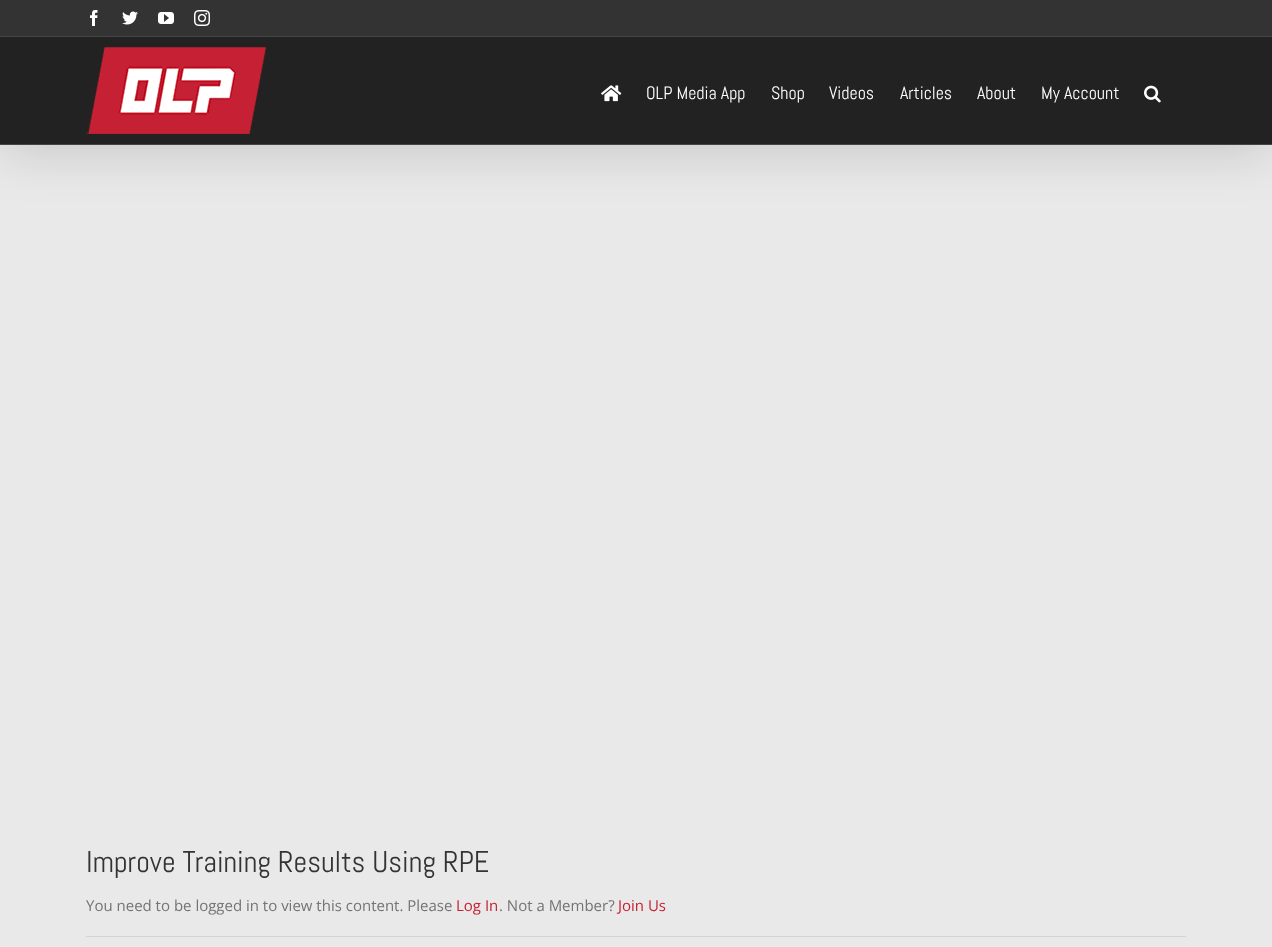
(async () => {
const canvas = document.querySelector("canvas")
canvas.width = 1272
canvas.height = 947
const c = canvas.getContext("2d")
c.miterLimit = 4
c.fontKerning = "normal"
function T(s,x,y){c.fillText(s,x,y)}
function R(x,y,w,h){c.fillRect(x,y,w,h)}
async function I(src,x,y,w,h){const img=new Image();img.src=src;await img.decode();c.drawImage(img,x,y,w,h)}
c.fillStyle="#eae9e9"
R(0,0,1272,947)
c.fillStyle="#00000024"
c.filter="blur(25px)"
c.beginPath()
c.rect(2,12,1268,141)
c.fill()
c.filter="none"
c.fillStyle="#333"
R(0,0,1272,36)
c.fillStyle="#444"
R(0,36,1272,1)
await I("1.png",90,10,8,16)
await I("2.png",122,11,16,14)
await I("3.png",158,12,16,12)
await I("4.png",194,10,16,16)
c.fillStyle="#222"
R(0,37,1272,107)
c.fillStyle="#444"
R(0,144,1272,1)
await I("5.png",86,47,180,87)
await I("6.png",601,85,21,17)
c.font="18px Abel"
c.fillStyle="#fff"
T("OLP Media App",646,99)
T("Shop",771,99)
T("Videos",829,99)
T("Articles",900,99)
T("About",977,99)
T("My Account",1041,99)
await I("7.png",1144,85,17,18)
c.font="30px Abel"
c.fillStyle="#333"
T("Improve Training Results Using RPE",86,872)
c.font="15px Open Sans"
c.fillStyle="#747474"
T("You need to be logged in to view this content. Please",86,911)
c.fillStyle="#c52033"
T("Log In",456,911)
c.fillStyle="#747474"
T(". Not a Member?",499,911)
c.fillStyle="#c52033"
T("Join Us",618,911)
c.fillStyle="#d3d3d3"
R(86,936,1100,1)
})()
